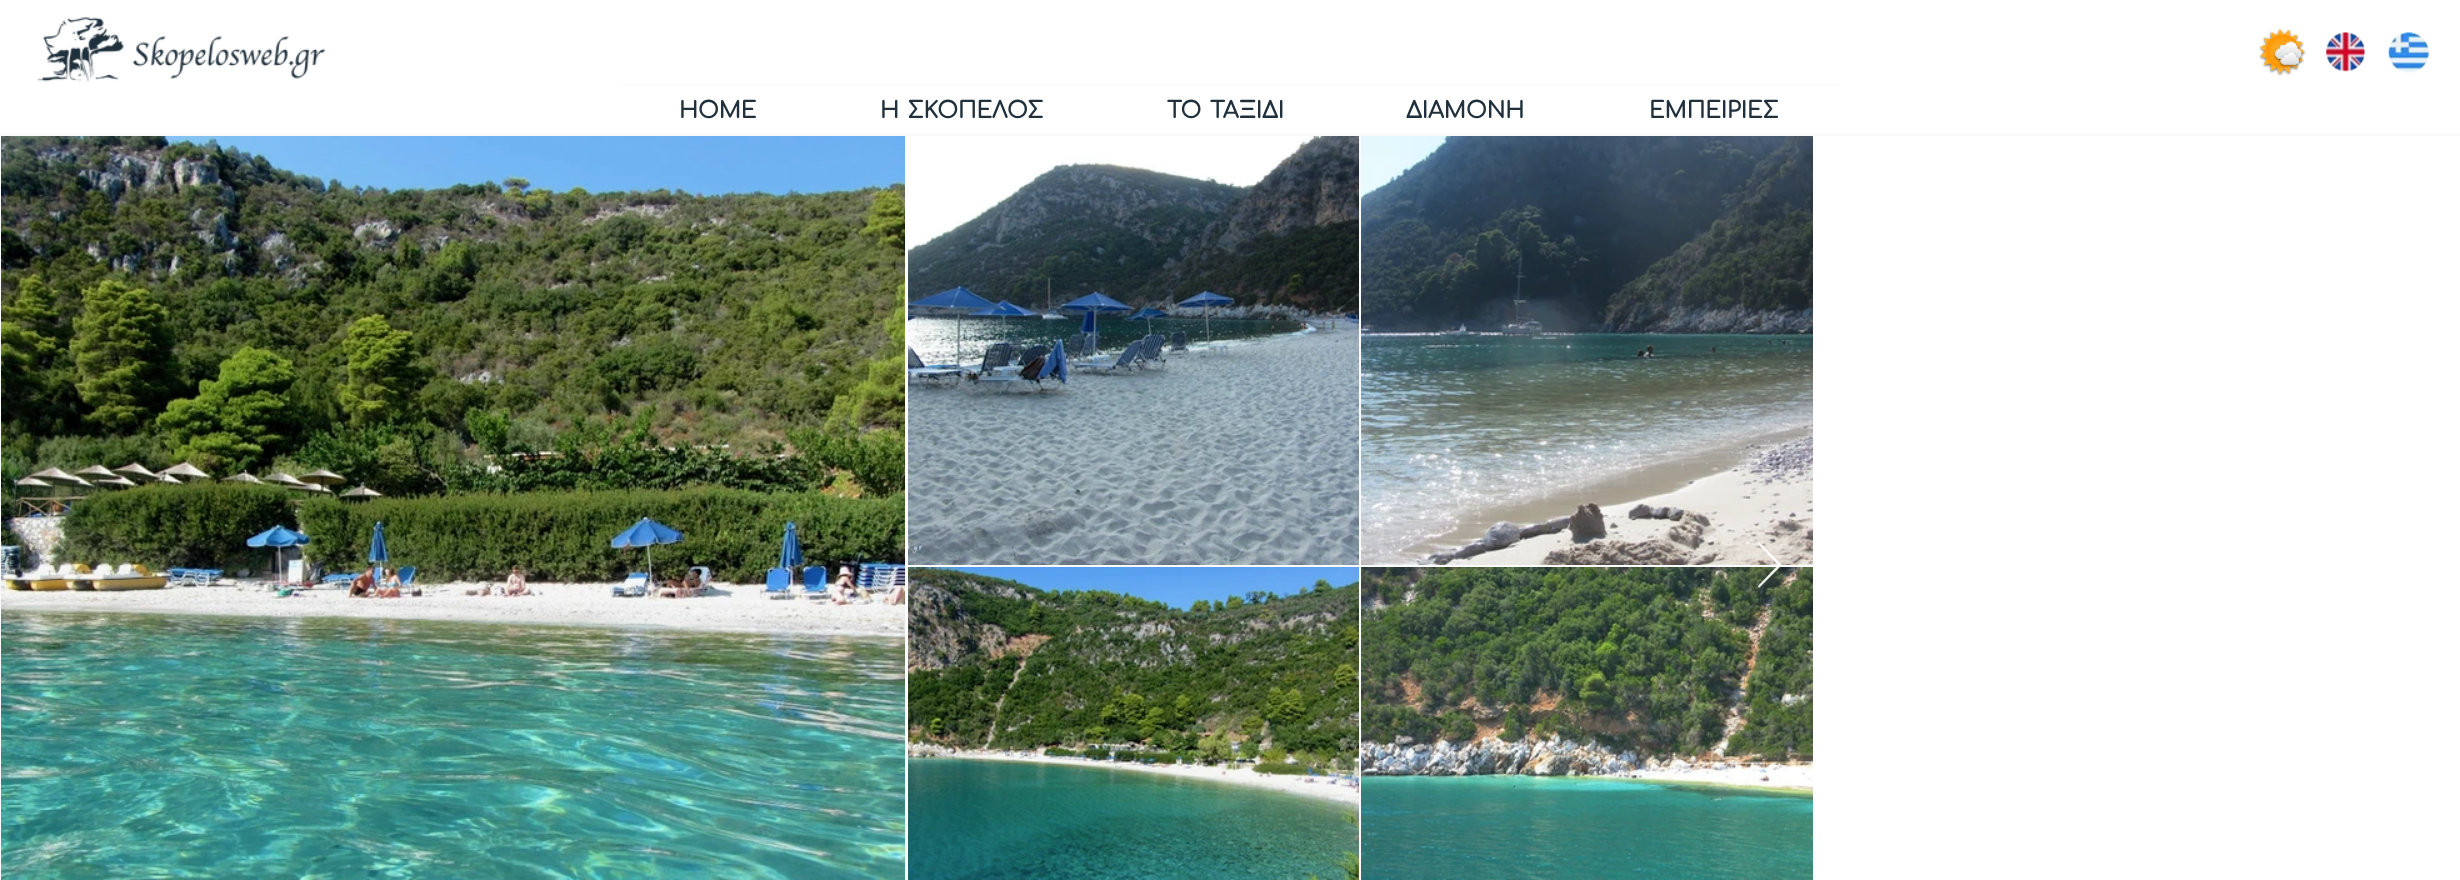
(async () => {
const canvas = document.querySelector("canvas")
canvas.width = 2460
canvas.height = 880
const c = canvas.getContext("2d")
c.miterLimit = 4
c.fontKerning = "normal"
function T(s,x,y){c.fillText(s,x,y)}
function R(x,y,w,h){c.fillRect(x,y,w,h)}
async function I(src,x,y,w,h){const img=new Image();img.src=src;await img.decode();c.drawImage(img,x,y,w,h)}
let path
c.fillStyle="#fff"
R(0,0,2460,880)
await I("1.png",37,17,288,66)
await I("2.png",2259,28,47,48)
await I("3.png",2326,32,39,40)
await I("4.png",2388,32,41,41)
c.fillStyle="#fafafa"
R(618,84,1225,1)
c.font="bold 22.5px Comfortaa"
c.fillStyle="#20303c"
T("HOME",679,118)
c.wordSpacing="2px"
T("Η ΣΚΟΠΕΛΟΣ",880,118)
T("ΤΟ ΤΑΞΙΔΙ",1167,118)
c.wordSpacing="0px"
T("ΔΙΑΜΟΝΗ",1406,118)
T("ΕΜΠΕΙΡΙΕΣ",1649,118)
c.strokeStyle="#fafafa"
c.strokeRect(.5,135.5,905,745)
c.strokeRect(906.5,135.5,453,430)
c.save()
c.beginPath()
c.rect(0,135,1813,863)
c.clip()
c.strokeRect(1360.5,135.5,453,430)
c.restore()
c.fillStyle="#fafafa"
R(0,133,2460,3)
await I("5.png",1,136,904,744)
await I("6.png",908,136,451,429)
c.strokeRect(906.5,566.5,453,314)
await I("7.png",908,567,451,313)
await I("8.png",1361,136,452,429)
c.save()
c.beginPath()
c.rect(0,135,1813,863)
c.clip()
c.strokeRect(1360.5,566.5,453,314)
c.restore()
await I("9.png",1361,567,452,313)
c.fillStyle="#ffffffe6"
path = new Path2D("M1758 544l1-2l23 23l-23 23l-1-2l20-21z")
c.fill(path)
})()
